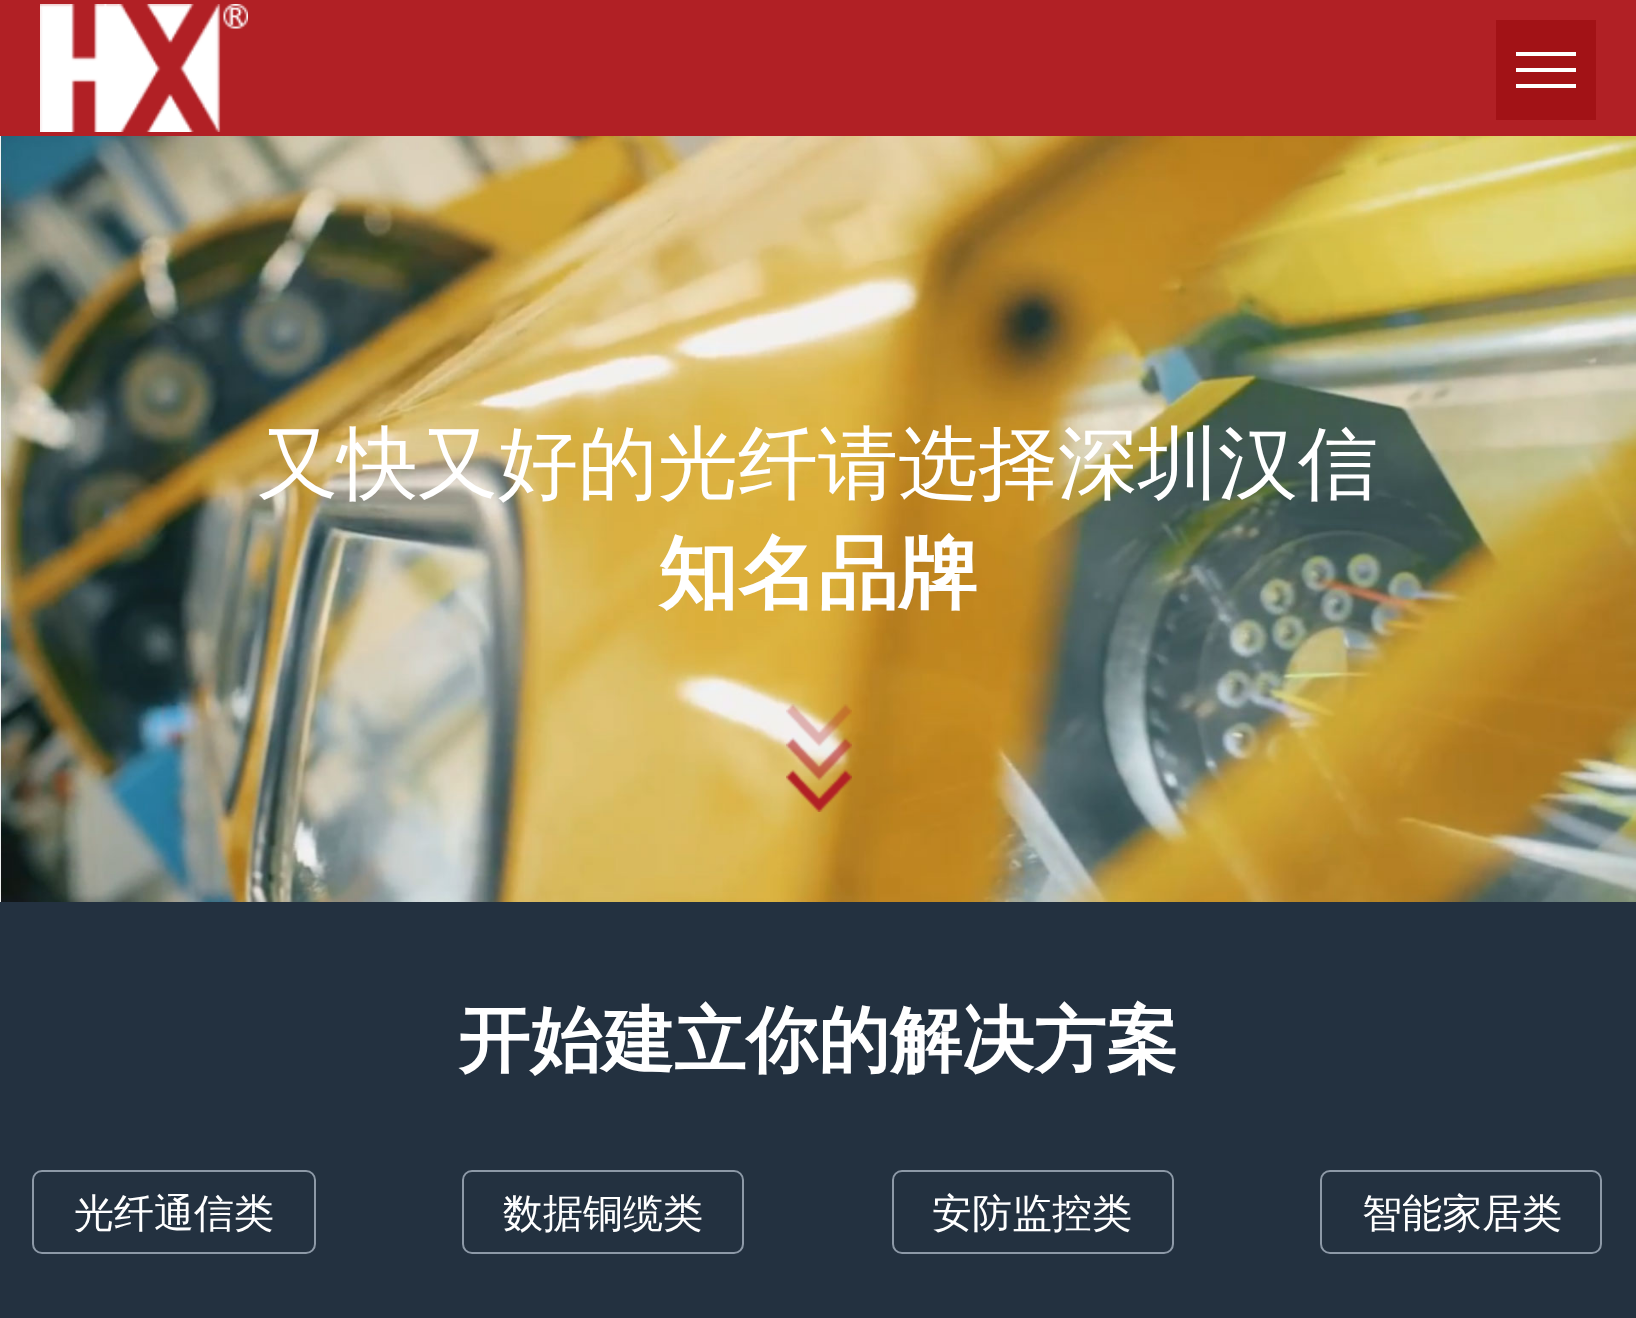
(async () => {
const canvas = document.querySelector("canvas")
canvas.width = 1636
canvas.height = 1318
const c = canvas.getContext("2d")
c.miterLimit = 4
c.fontKerning = "normal"
function T(s,x,y){c.fillText(s,x,y)}
function R(x,y,w,h){c.fillRect(x,y,w,h)}
async function I(src,x,y,w,h){const img=new Image();img.src=src;await img.decode();c.drawImage(img,x,y,w,h)}
c.fillStyle="#233140"
R(0,0,1636,1318)
c.fillStyle="#b12025"
R(0,0,1636,136)
await I("1.png",40,4,208,128)
c.fillStyle="#a21216"
R(1496,20,100,100)
c.fillStyle="#fff"
R(1516,68,60,4)
R(1516,52,60,4)
R(1516,84,60,4)
await I("2.png",0,136,1636,766)
c.font="500 80px WenQuanYi Zen Hei"
T("又快又好的光纤请选择深圳汉信",258,491)
c.font="bold 80px WenQuanYi Zen Hei"
T("知名品牌",658,601)
await I("3.png",786,704,66,108)
c.font="bold 72px WenQuanYi Zen Hei"
T("开始建立你的解决方案",458,1065)
c.beginPath()
c.roundRect(33,1171,282,82,9)
c.strokeStyle="#8d99a7"
c.lineWidth=2
c.stroke()
c.font="500 40px WenQuanYi Zen Hei"
T("光纤通信类",74,1227)
c.beginPath()
c.roundRect(463,1171,280,82,9)
c.stroke()
T("数据铜缆类",503,1227)
c.beginPath()
c.roundRect(893,1171,280,82,9)
c.stroke()
T("安防监控类",932,1227)
c.beginPath()
c.roundRect(1321,1171,280,82,9)
c.stroke()
T("智能家居类",1362,1227)
})()
